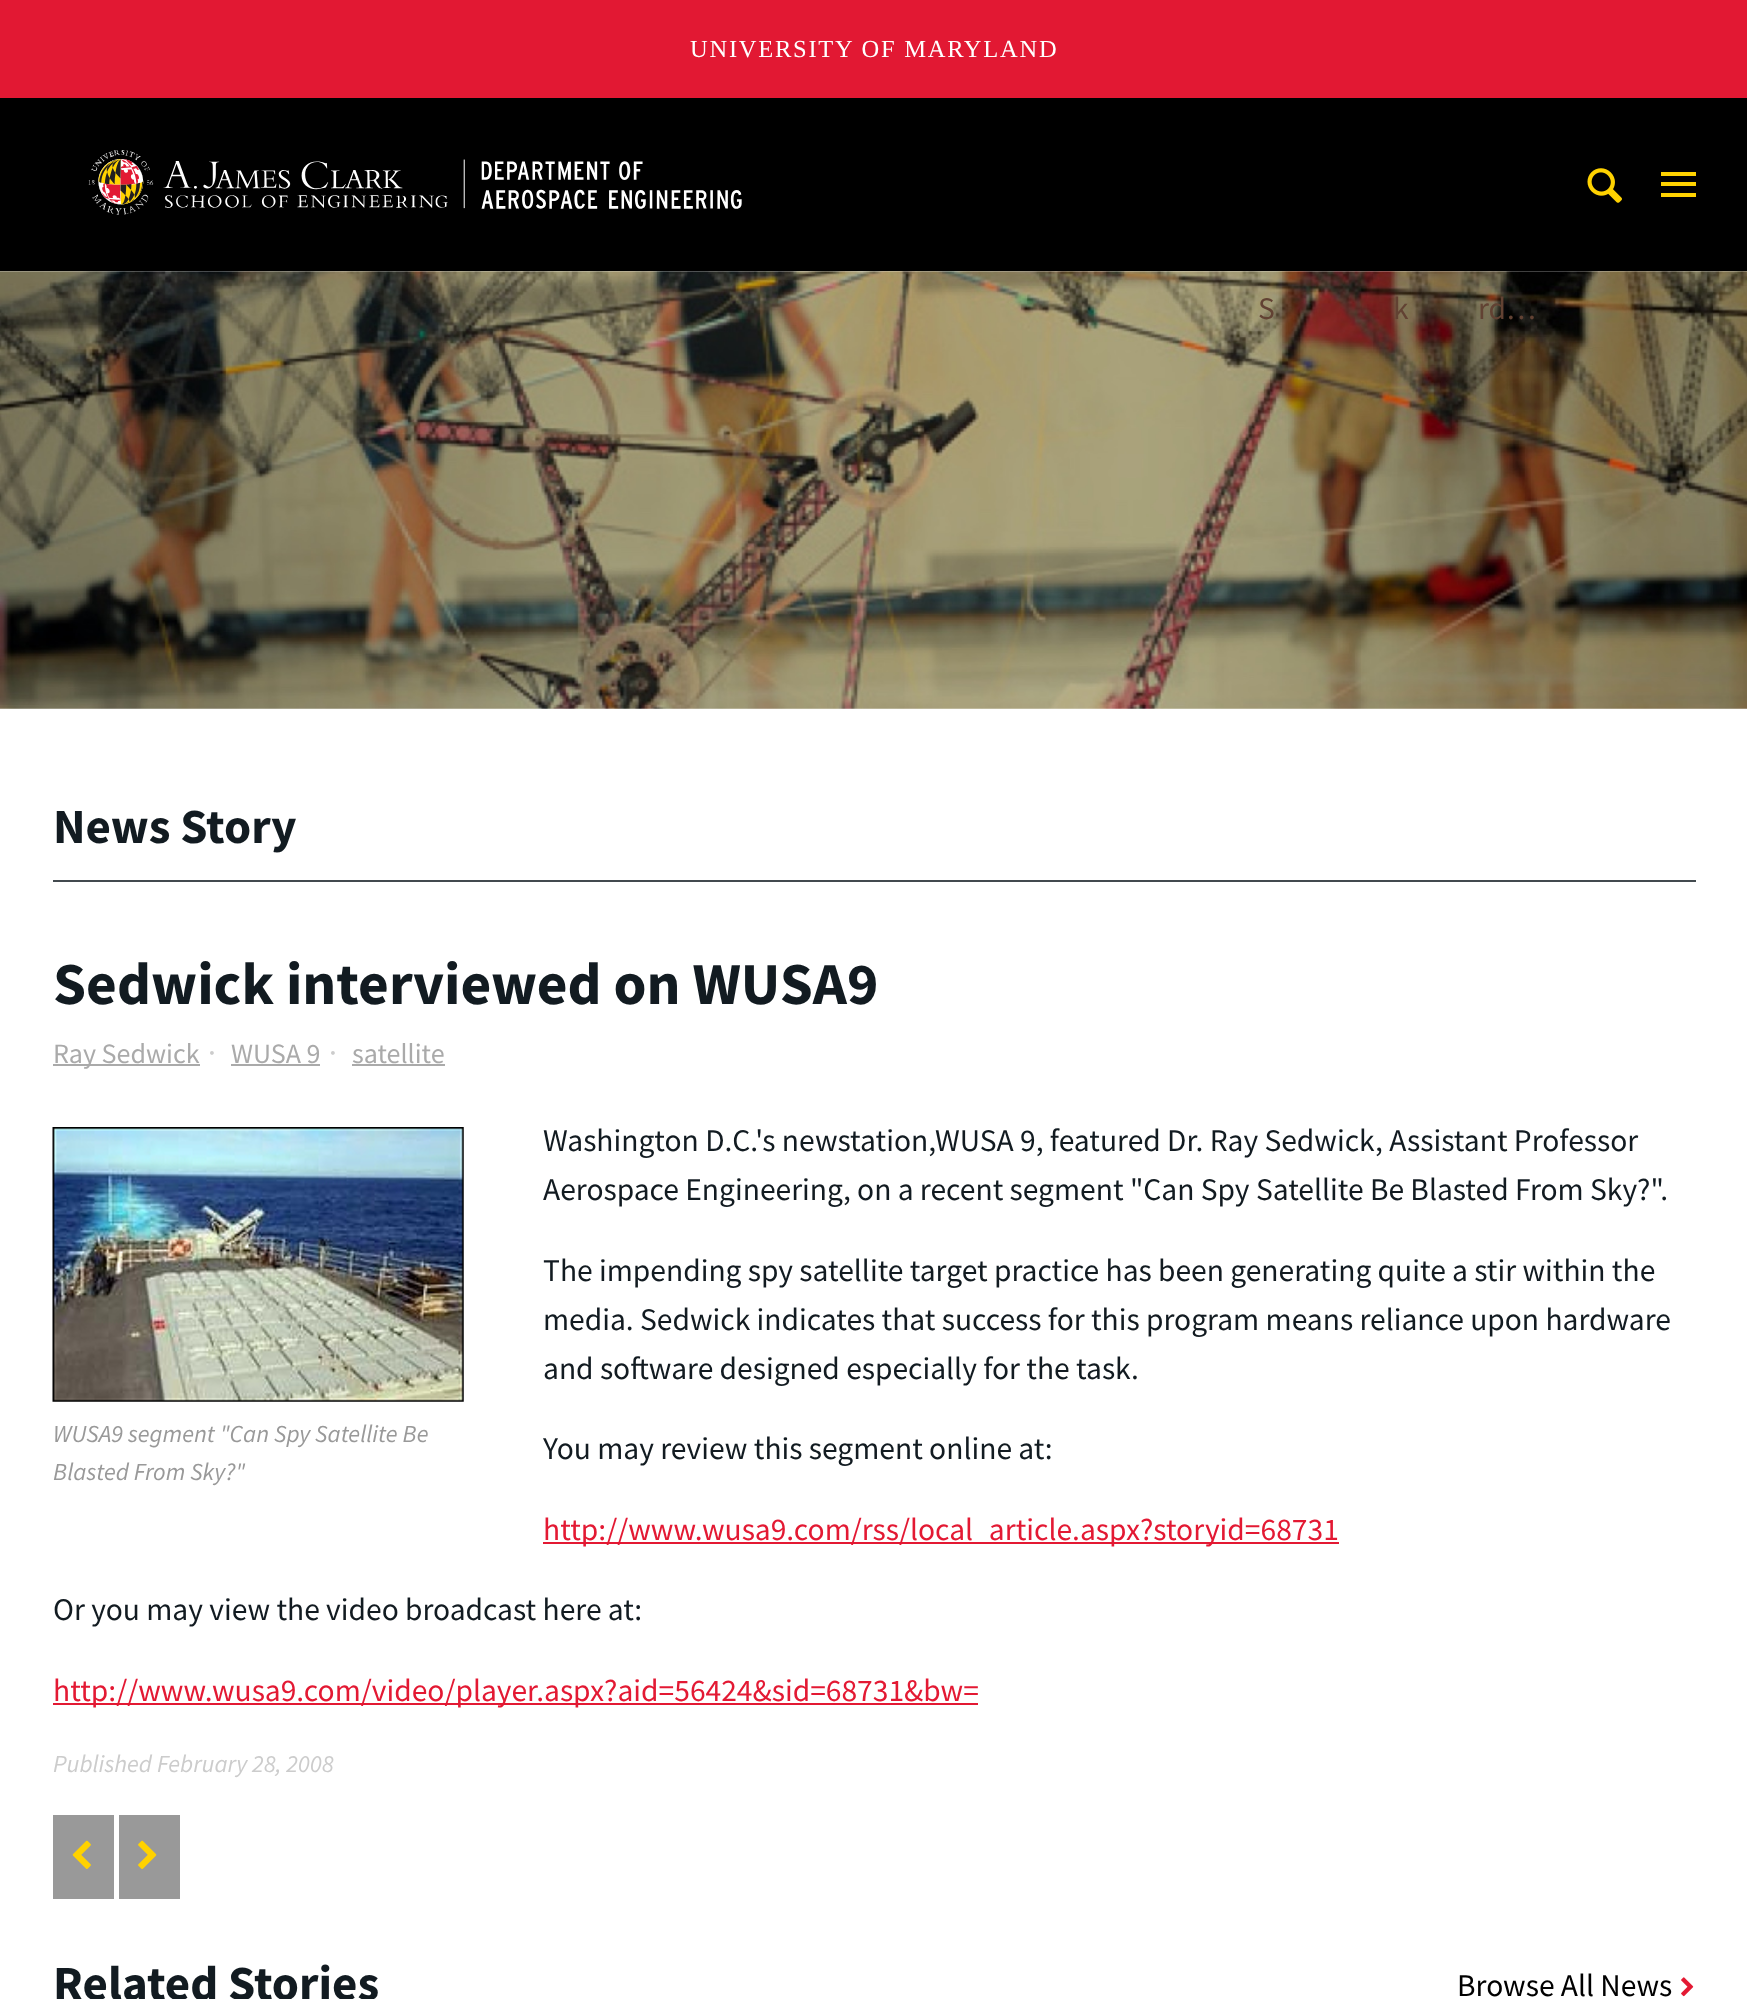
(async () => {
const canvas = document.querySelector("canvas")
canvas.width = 1747
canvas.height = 1999
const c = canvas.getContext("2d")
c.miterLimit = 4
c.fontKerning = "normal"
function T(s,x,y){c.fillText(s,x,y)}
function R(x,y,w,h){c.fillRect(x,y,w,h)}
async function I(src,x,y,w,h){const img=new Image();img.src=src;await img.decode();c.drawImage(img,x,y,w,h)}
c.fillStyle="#fff"
R(0,0,1747,1999)
c.fillStyle="#e21833"
R(0,0,1747,98)
c.letterSpacing="1.75px"
c.font="24.5px Liberation Serif"
c.fillStyle="#fff"
T("UNIVERSITY OF MARYLAND",690,57)
await I("1.png",0,271,1747,438)
c.fillStyle="#000"
R(0,98,1747,173)
await I("2.png",88,150,654,65)
await I("3.png",1587,168,35,35)
c.fillStyle="#ffd200"
R(1661,172,35,4)
R(1661,193,35,4)
R(1661,182,35,4)
c.letterSpacing="0px"
c.font="31.5px Source Sans Pro"
c.fillStyle="#624233"
T("S",1258,319)
T("k",1393,319)
T("rd…",1478,319)
c.fillStyle="#434a4f"
R(53,880,1643,2)
c.font="bold 49px Source Sans Pro"
c.fillStyle="#121b21"
T("News Story",53,843)
c.font="bold 59.5px Source Sans Pro"
T("Sedwick interviewed on WUSA9",53,1004)
c.fillStyle="#aaa"
R(53,1064,147,2)
c.font="28px Source Sans Pro"
T("Ray Sedwick",53,1063)
c.font="31.5px Source Sans Pro"
c.fillStyle="#ccc"
T("·",208,1063)
c.font="28px Source Sans Pro"
c.fillStyle="#aaa"
T("WUSA 9",231,1063)
R(231,1064,89,2)
c.font="31.5px Source Sans Pro"
c.fillStyle="#ccc"
T("·",329,1063)
c.font="28px Source Sans Pro"
c.fillStyle="#aaa"
T("satellite",352,1063)
R(352,1064,93,2)
c.font="31.5px Source Sans Pro"
c.fillStyle="#121b21"
T("Washington D.C.'s newstation,WUSA 9, featured Dr. Ray Sedwick, Assistant Professor",543,1151)
T("Aerospace Engineering, on a recent segment \"Can Spy Satellite Be Blasted From Sky?\".",543,1200)
T("The impending spy satellite target practice has been generating quite a stir within the",543,1281)
T("media. Sedwick indicates that success for this program means reliance upon hardware",543,1330)
T("and software designed especially for the task.",543,1379)
await I("4.png",52,1127,412,275)
c.font="italic 24.5px Source Sans Pro"
c.fillStyle="#999"
T("WUSA9 segment \"Can Spy Satellite Be",53,1442)
T("Blasted From Sky?\"",53,1480)
c.font="31.5px Source Sans Pro"
c.fillStyle="#121b21"
T("You may review this segment online at:",543,1459)
c.fillStyle="#e31933"
R(543,1542,796,2)
T("http://www.wusa9.com/rss/local_article.aspx?storyid=68731",543,1540)
c.fillStyle="#121b21"
T("Or you may view the video broadcast here at:",53,1620)
c.fillStyle="#e31933"
R(53,1703,925,2)
T("http://www.wusa9.com/video/player.aspx?aid=56424&sid=68731&bw=",53,1701)
c.font="italic 24.5px Source Sans Pro"
c.fillStyle="#ccc"
T("Published February 28, 2008",53,1772)
c.fillStyle="#999"
R(53,1815,61,84)
await I("5.png",72,1840,19,29)
R(119,1815,61,84)
await I("6.png",138,1840,19,29)
c.font="bold 49px Source Sans Pro"
c.fillStyle="#121b21"
T("Related Stories",53,2000)
c.font="31.5px Source Sans Pro"
c.fillStyle="#000"
T("Browse All News",1457,1996)
await I("7.png",1681,1977,13,20)
})()
